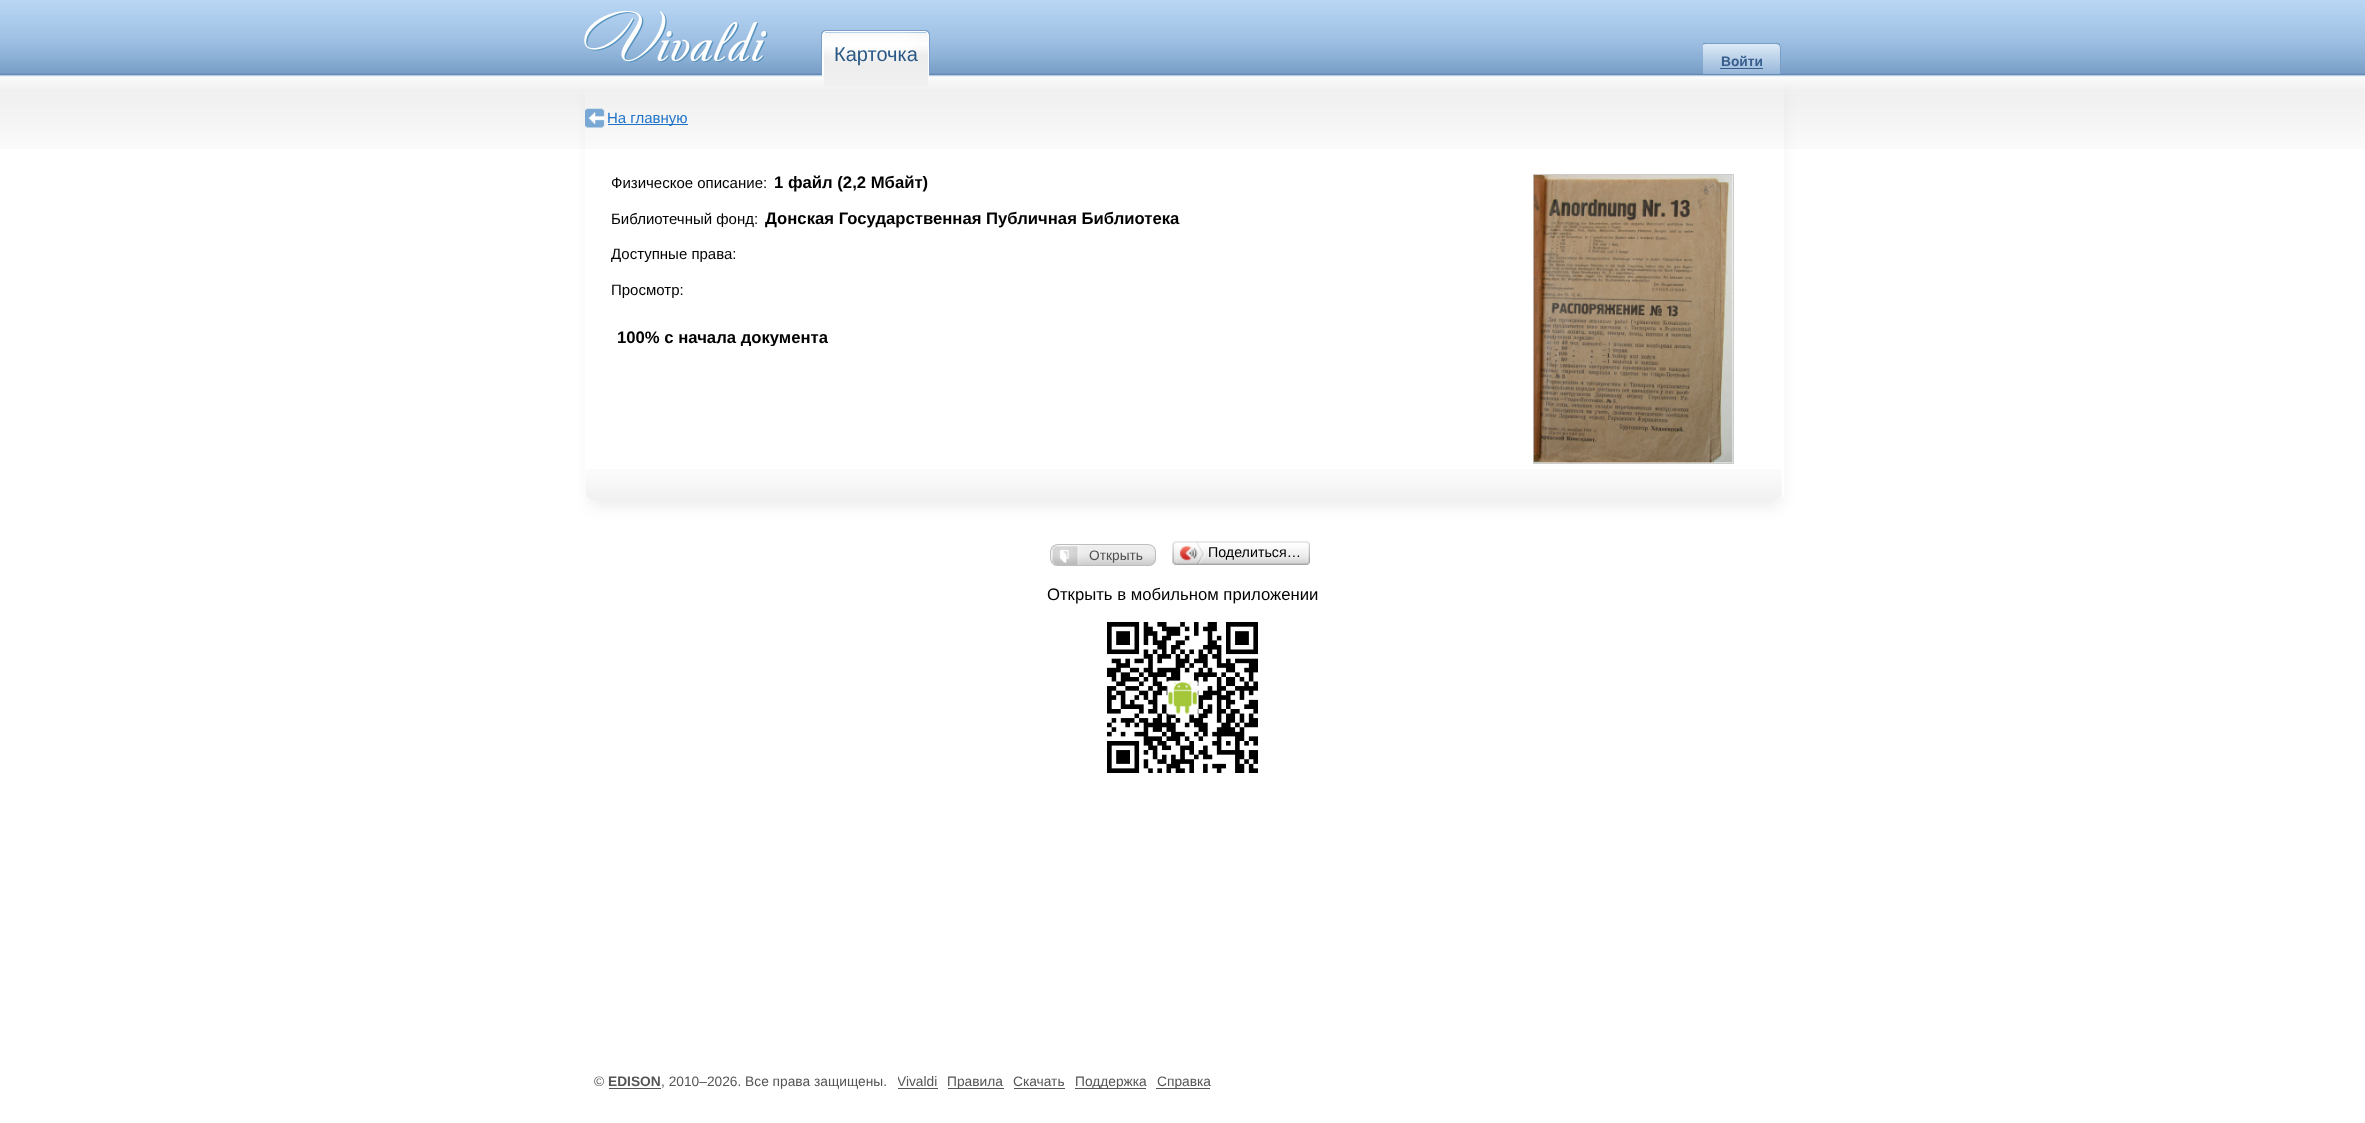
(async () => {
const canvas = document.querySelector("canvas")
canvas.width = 2365
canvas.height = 1123
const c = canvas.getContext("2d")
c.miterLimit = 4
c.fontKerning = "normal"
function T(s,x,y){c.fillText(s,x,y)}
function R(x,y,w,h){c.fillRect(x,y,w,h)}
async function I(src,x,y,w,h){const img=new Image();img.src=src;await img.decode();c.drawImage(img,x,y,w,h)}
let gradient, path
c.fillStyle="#fff"
R(0,0,2365,1123)
await I("1.png",0,0,2365,149)
await I("2.png",584,10,184,53)
c.save()
c.beginPath()
c.roundRect(1701,43,80,31,[5,5,0,0])
c.clip()
gradient = c.createLinearGradient(1703,44,1703,74)
gradient.addColorStop(0,"#ddeaf7")
gradient.addColorStop(1,"#97b7d9")
c.fillStyle = gradient
R(1703,44,78,30)
c.restore()
c.save()
c.beginPath()
c.rect(1703,43,78,32)
c.clip()
c.fillStyle="#759fc9"
path = new Path2D("M1706 42h70c3 0 5 3 5 6v26h-80v-26c0-3 2-6 5-6zm0 2h70c2 0 4 1 4 4v26h-78v-26c0-3 2-4 4-4z")
c.fill(path,"evenodd")
c.restore()
c.fillStyle="#375e8c"
R(1720,68,43,1)
c.save()
path = new Path2D("M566 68h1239v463h-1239zm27 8h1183c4.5 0 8 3.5 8 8v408c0 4.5-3.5 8-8 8h-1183c-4.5 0-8-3.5-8-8v-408c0-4.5 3.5-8 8-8z")
c.clip(path,"evenodd")
c.fillStyle="#00000014"
c.filter="blur(8px)"
c.beginPath()
c.roundRect(591,93,1189,413,2.5)
c.fill()
c.filter="none"
c.restore()
gradient = c.createLinearGradient(824,33,824,89)
gradient.addColorStop(0,"#f6f6f6")
gradient.addColorStop(.2,"#fefefe")
gradient.addColorStop(.4,"#edecec")
gradient.addColorStop(1,"#f2f1f1")
c.fillStyle = gradient
R(824,33,104,53)
c.save()
c.beginPath()
c.rect(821,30,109,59)
c.clip()
c.fillStyle="#fff"
c.filter="blur(7.5px)"
c.beginPath()
c.rect(826,38,88,15)
c.fill()
c.filter="none"
c.restore()
c.fillStyle="#fff"
path = new Path2D("M826 31h99c2 0 4 2 4 4v41h-107v-41c0-2 2-4 4-4zm0 1h99c1 0 3 2 3 3v41h-104v-41c0-1 1-3 2-3z")
c.fill(path,"evenodd")
c.font="20px Liberation Sans"
c.fillStyle="#2a5885"
T("Карточка",834,61)
c.fillStyle="#7b9ec8"
path = new Path2D("M826 30h99c3 0 5 2 5 5v39h-109v-39c0-3 2-5 5-5zm0 1h99c2 0 4 2 4 4v39h-107v-39c0-2 2-4 4-4z")
c.fill(path,"evenodd")
c.font="bold 13.75px Liberation Sans"
c.fillStyle="#375e8c"
T("Войти",1721,66)
await I("3.png",585,108,20,20)
c.fillStyle="#1f74ca"
R(608,124,80,1)
c.font="15px Liberation Sans"
T("На главную",607,123)
await I("4.png",585,469,1197,31)
c.fillStyle="#000"
T("Физическое описание:",611,188)
c.font="bold 16.7px Liberation Sans"
T("1 файл (2,2 Мбайт)",774,188)
c.font="15px Liberation Sans"
T("Библиотечный фонд:",611,224)
c.font="bold 16.7px Liberation Sans"
T("Донская Государственная Публичная Библиотека",765,224)
c.font="15px Liberation Sans"
T("Доступные права:",611,259)
T("Просмотр:",611,295)
c.save()
c.beginPath()
c.rect(618,328,210,18)
c.clip()
c.font="bold 16.7px Liberation Sans"
T("100% с начала документа",617,343)
c.restore()
c.strokeStyle="#ccc"
c.strokeRect(1533.5,174.5,200,289)
await I("5.png",1533,175,200,288)
await I("6.png",1051,545,105,21)
c.beginPath()
c.roundRect(1050.5,544.5,105,21,7.5)
c.strokeStyle="#bdbdbe"
c.stroke()
c.font="13.75px Liberation Sans"
c.fillStyle="#505050"
T("Открыть",1089,560)
await I("7.png",1176,541,131,24)
await I("8.png",1172,541,5,24)
await I("9.png",1180,542,25,22)
c.font="14.25px Liberation Sans"
c.fillStyle="#000"
T("Поделиться…",1208,557)
await I("10.png",1306,541,4,24)
c.font="16.7px Liberation Sans"
T("Открыть в мобильном приложении",1047,600)
await I("11.png",1107,603,151,170)
c.font="13.75px Liberation Sans"
c.fillStyle="#565555"
T("©",594,1086)
c.font="bold 13.75px Liberation Sans"
T("EDISON",608,1086)
R(609,1088,52,1)
c.font="13.75px Liberation Sans"
T(", 2010–2026. Все права защищены.",661,1086)
c.save()
c.beginPath()
c.rect(898,1074,312,15)
c.clip()
T("Vivaldi",897,1086)
c.restore()
R(898,1088,40,1)
R(948,1088,56,1)
T("Правила",947,1086)
T("Скачать",1013,1086)
R(1014,1088,51,1)
R(1075,1088,71,1)
T("Поддержка",1075,1086)
R(1156,1088,54,1)
T("Справка",1157,1086)
})()
